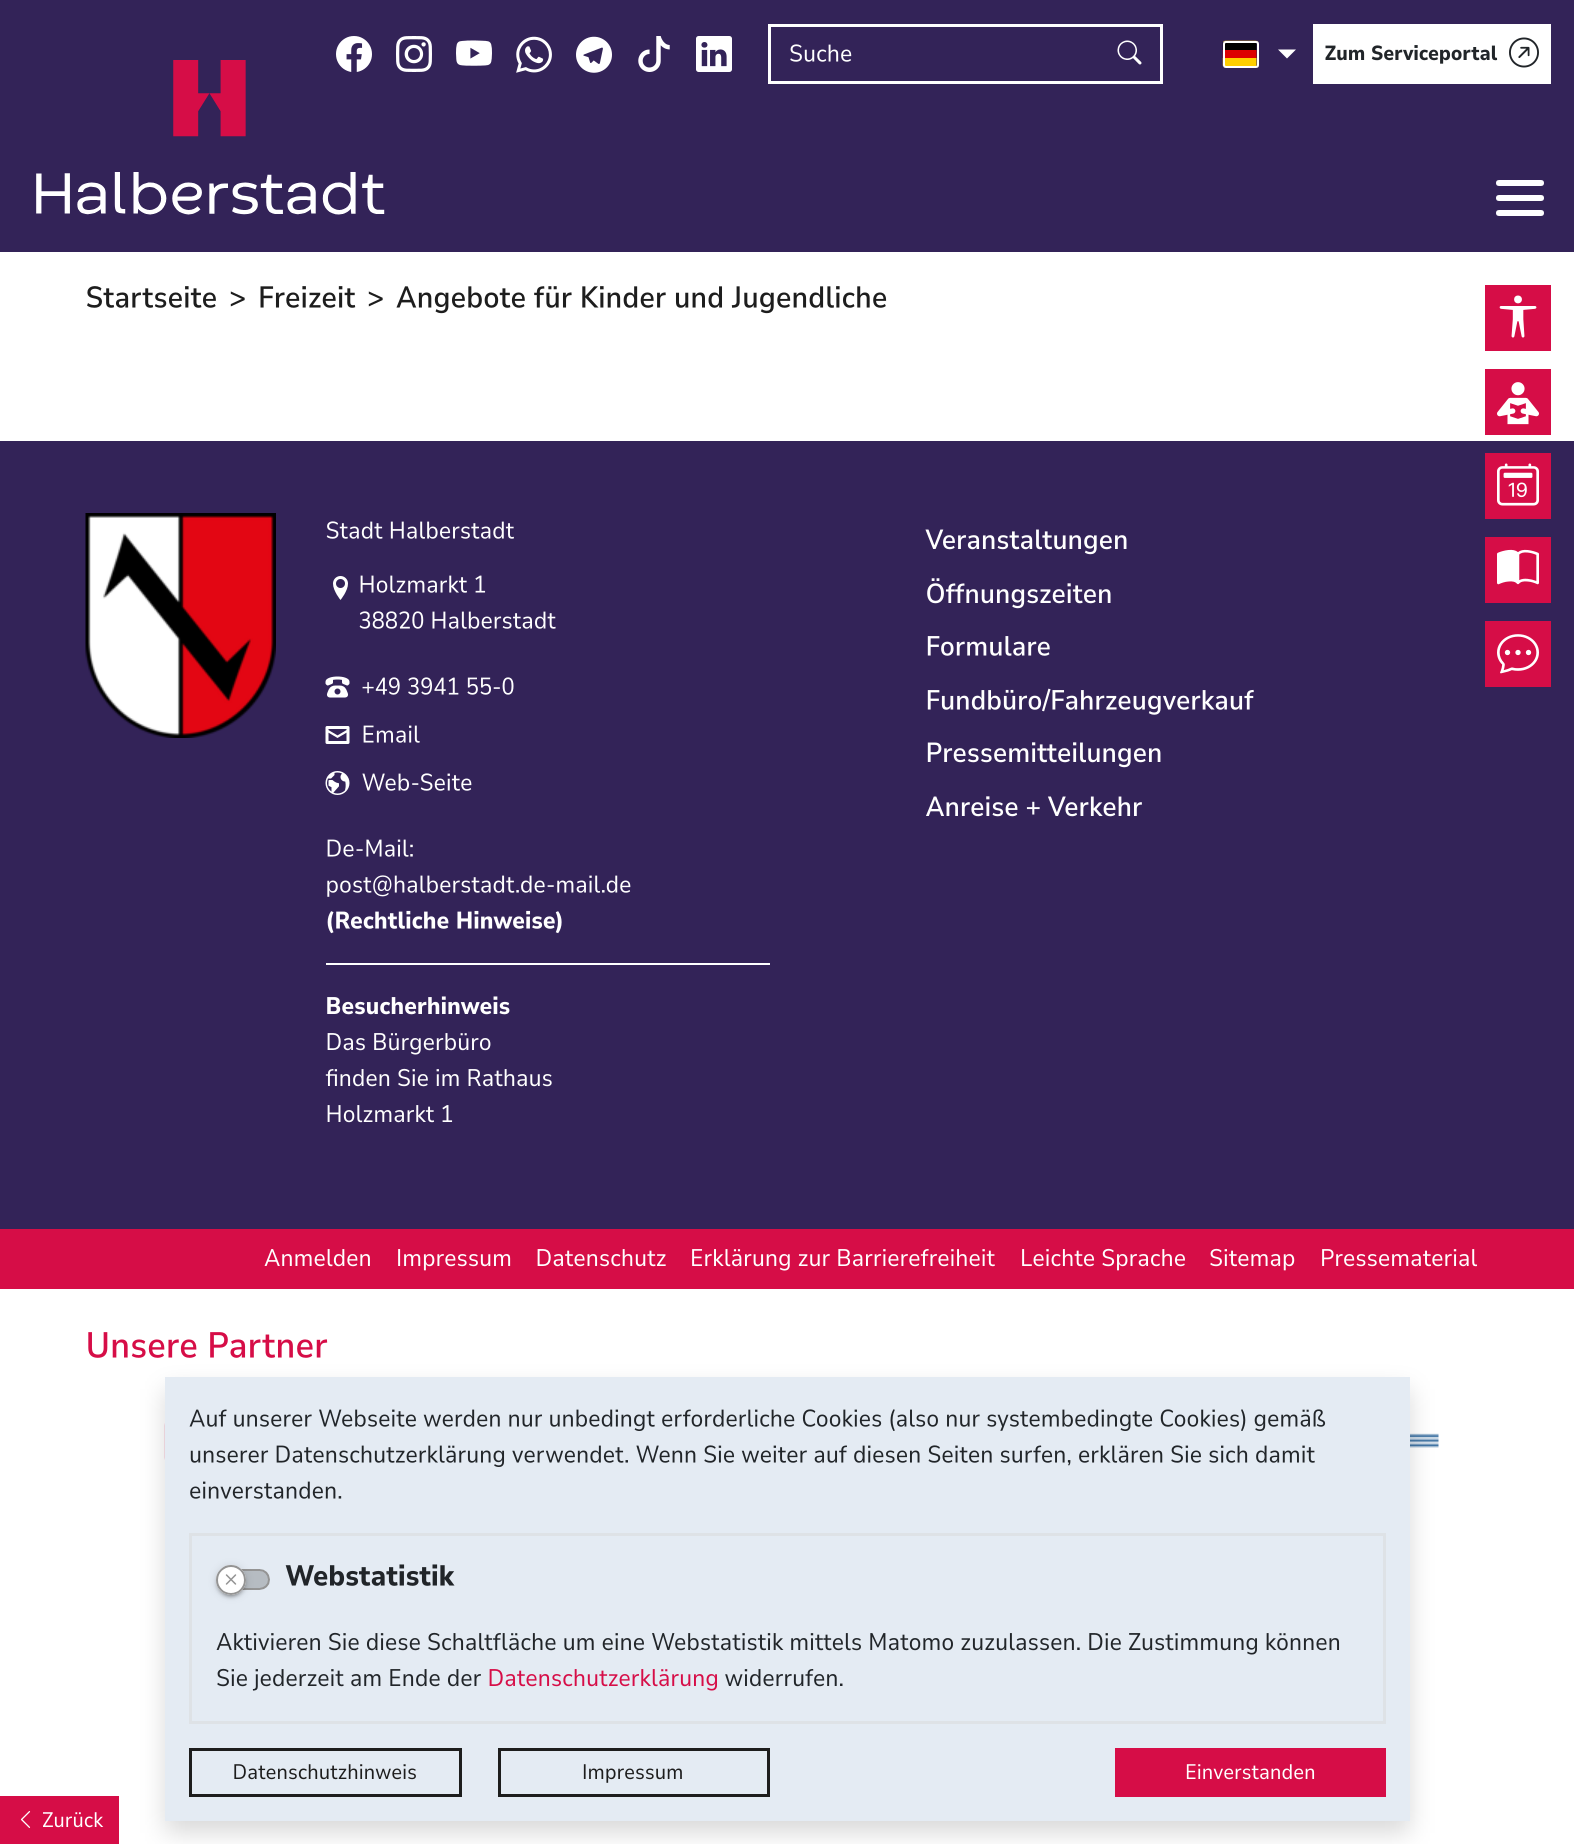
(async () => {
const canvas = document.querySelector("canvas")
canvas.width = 1574
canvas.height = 1844
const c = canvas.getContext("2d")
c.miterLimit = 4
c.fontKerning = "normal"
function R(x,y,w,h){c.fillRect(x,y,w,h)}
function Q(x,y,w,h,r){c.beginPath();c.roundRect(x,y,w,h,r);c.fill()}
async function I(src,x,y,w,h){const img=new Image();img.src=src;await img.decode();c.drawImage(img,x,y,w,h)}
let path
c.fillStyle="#fff"
R(0,0,1574,1844)
c.fillStyle="#332358"
R(0,0,1574,252)
await I("1.png",336,36,36,36)
await I("2.png",396,36,36,36)
await I("3.png",456,40,36,26)
await I("4.png",516,36,36,37)
await I("5.png",576,36,36,37)
await I("6.png",638,36,32,36)
await I("7.png",696,36,36,36)
c.fillStyle="#fff"
R(768,24,395,3)
R(768,81,332,3)
R(768,24,3,60)
await I("8.png",790,44,62,18)
R(1160,24,3,60)
R(1100,81,63,3)
await I("9.png",1117,40,25,25)
await I("10.png",1222,40,37,28)
c.beginPath()
c.roundRect(1224,42,34,25,2)
c.strokeStyle="#fff"
c.lineWidth=2
c.stroke()
path = new Path2D("M1278 49.5h18l-9 9z")
c.fill(path)
R(1313,24,238,60)
await I("11.png",1325,45,173,19)
await I("12.png",1509,37,30,31)
await I("13.png",36,60,349,155)
Q(1496,180,48,6,3)
Q(1496,195,48,6,3)
Q(1496,210,48,6,3)
await I("14.png",87,286,129,22)
await I("15.png",230,291,15,16)
await I("16.png",260,286,96,22)
await I("15.png",368,291,15,16)
await I("17.png",396,286,491,28)
c.fillStyle="#d60d47"
R(1485,285,66,66)
await I("18.png",1499,295,38,43)
R(1485,369,66,66)
await I("19.png",1497,382,42,43)
c.fillStyle="#332358"
R(0,441,1574,788)
c.fillStyle="#d60d47"
R(1485,453,66,66)
await I("20.png",1497,463,42,43)
R(1485,537,66,66)
await I("21.png",1497,549,42,36)
R(1485,621,66,66)
await I("22.png",1497,634,42,40)
await I("23.png",85,513,191,225)
await I("24.png",326,521,188,18)
await I("25.png",333,576,15,24)
await I("26.png",360,575,126,18)
await I("27.png",359,611,197,18)
await I("28.png",325,676,25,22)
await I("29.png",362,677,152,18)
await I("30.png",325,726,25,18)
await I("31.png",363,725,57,18)
await I("32.png",325,771,25,24)
await I("33.png",362,773,110,18)
await I("34.png",327,839,86,18)
await I("35.png",327,875,304,22)
await I("36.png",327,911,7,23)
await I("37.png",336,910,219,19)
await I("38.png",555,911,7,23)
c.fillStyle="#fff"
R(326,963,444,2)
await I("39.png",327,996,183,19)
await I("40.png",327,1033,164,22)
await I("41.png",325,1068,227,19)
await I("42.png",327,1105,126,18)
await I("43.png",925,529,202,26)
await I("44.png",927,578,184,31)
await I("45.png",927,636,123,20)
await I("46.png",927,688,327,27)
await I("47.png",927,742,234,26)
await I("48.png",926,796,216,21)
c.fillStyle="#d60d47"
R(0,1229,1574,60)
await I("49.png",264,1249,106,18)
await I("50.png",398,1249,113,22)
await I("51.png",537,1249,129,18)
await I("52.png",692,1249,303,22)
await I("53.png",1022,1248,163,23)
await I("54.png",1210,1248,85,23)
await I("55.png",1322,1249,156,18)
await I("56.png",88,1332,240,26)
await I("57.png",164,1423,1,37)
await I("58.png",1410,1433,29,15)
R(0,1796,119,48)
await I("59.png",20,1811,11,17)
await I("60.png",43,1812,61,16)
c.fillStyle="#00000026"
c.filter="blur(12px)"
c.beginPath()
c.rect(165,1389,1245,444)
c.fill()
c.filter="none"
c.fillStyle="#e4ebf3"
R(165,1377,1245,444)
await I("61.png",189,1409,1137,22)
await I("62.png",190,1445,1125,22)
await I("63.png",190,1481,152,18)
c.strokeStyle="#dee2e6"
c.lineWidth=3
c.strokeRect(190.5,1534.5,1194,188)
c.fillStyle="#b6bcc2"
c.beginPath()
c.roundRect(217,1570,52,19,9.5)
c.fill()
c.strokeStyle="#949494"
c.lineWidth=2
c.stroke()
c.fillStyle="#0000001f"
c.filter="blur(4px)"
c.beginPath()
c.roundRect(216,1566,30,30,15)
c.fill()
c.filter="none"
c.fillStyle="#00000024"
c.filter="blur(1.5px)"
c.beginPath()
c.roundRect(216,1568,30,30,15)
c.fill()
c.filter="none"
c.fillStyle="#00000033"
c.filter="blur(1px)"
c.beginPath()
c.roundRect(219,1572,24,24,12)
c.fill()
c.filter="none"
c.fillStyle="#fff"
c.beginPath()
c.arc(231,1580,15,0,7)
c.fill()
await I("64.png",225,1574,12,11)
c.beginPath()
c.arc(231,1580,14,0,7)
c.stroke()
await I("65.png",285,1564,170,22)
await I("66.png",216,1632,1124,23)
await I("67.png",217,1668,264,23)
await I("68.png",489,1669,228,22)
await I("69.png",725,1669,118,18)
c.strokeStyle="#1d1d1d"
c.lineWidth=3
c.strokeRect(190.5,1749.5,270,46)
await I("70.png",234,1764,182,16)
c.strokeRect(499.5,1749.5,269,46)
await I("71.png",583,1764,99,19)
c.fillStyle="#d60d47"
R(1115,1748,271,49)
await I("72.png",1186,1764,129,16)
})()
